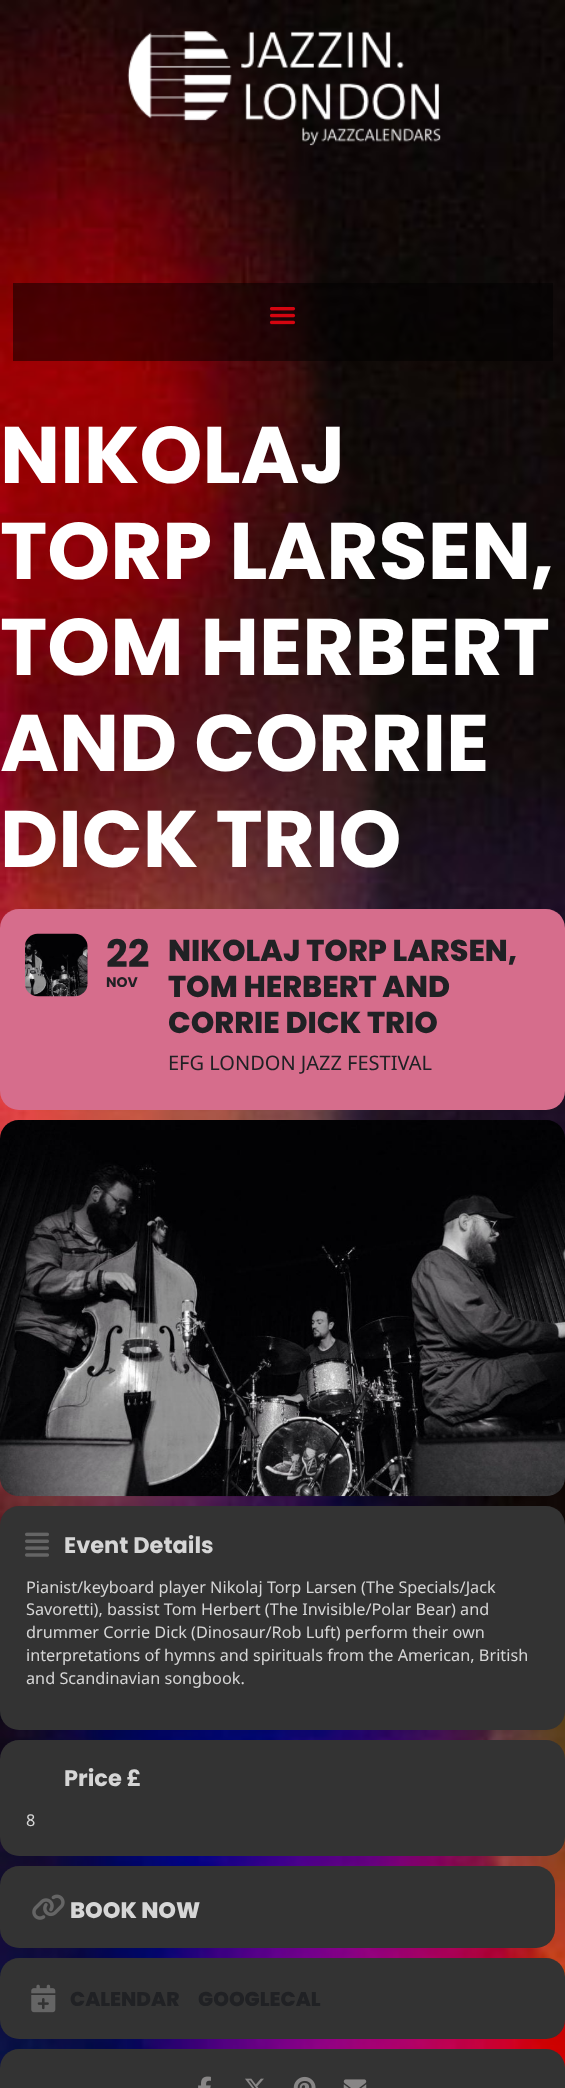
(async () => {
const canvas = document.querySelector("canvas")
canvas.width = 565
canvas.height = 2088
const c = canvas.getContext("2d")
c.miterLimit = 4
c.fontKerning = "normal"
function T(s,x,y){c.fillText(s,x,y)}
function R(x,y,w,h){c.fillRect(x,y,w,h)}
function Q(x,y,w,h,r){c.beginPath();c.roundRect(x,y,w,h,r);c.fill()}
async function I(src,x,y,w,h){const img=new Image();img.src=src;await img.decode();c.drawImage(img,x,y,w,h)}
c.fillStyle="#fff"
R(0,0,565,2088)
await I("1.png",0,0,565,2068)
await I("2.png",127,31,314,115)
c.fillStyle="#00000080"
R(13,283,540,78)
await I("3.png",269,307,27,18)
c.font="bold 80px Poppins"
c.fillStyle="#fff"
T("NIKOLAJ",0,483)
T("TORP LARSEN,",0,579)
T("TOM HERBERT",0,675)
T("AND CORRIE",0,771)
T("DICK TRIO",0,867)
c.fillStyle="#d66d8c"
Q(0,909,565,201,19)
await I("4.png",24,933,64,64)
c.font="bold 38px Poppins"
c.fillStyle="#202124"
T("22",106,967)
c.font="bold 14px Poppins"
T("NOV",106,987)
c.font="800 30px Poppins"
T("NIKOLAJ TORP LARSEN,",168,961)
T("TOM HERBERT AND",168,997)
T("CORRIE DICK TRIO",168,1033)
c.font="20px Noto Sans"
T("EFG LONDON JAZZ FESTIVAL",168,1070)
await I("5.png",0,1120,565,377)
c.fillStyle="#333"
Q(0,1506,565,224,19)
await I("6.png",25,1532,24,25)
c.font="bold 22.5px Poppins"
c.fillStyle="#d6d6d6"
T("Event Details",64,1553)
c.font="16.25px Noto Sans"
T("Pianist/keyboard player Nikolaj Torp Larsen (The Specials/Jack",26,1593)
T("Savoretti), bassist Tom Herbert (The Invisible/Polar Bear) and",26,1615)
T("drummer Corrie Dick (Dinosaur/Rob Luft) perform their own",26,1638)
T("interpretations of hymns and spirituals from the American, British",26,1661)
T("and Scandinavian songbook.",26,1684)
c.fillStyle="#333"
Q(0,1740,565,116,19)
c.font="bold 22.5px Poppins"
c.fillStyle="#d6d6d6"
T("Price £",64,1786)
c.font="16.25px Noto Sans"
T("8",26,1826)
c.fillStyle="#333"
Q(0,1866,555,82,19)
await I("7.png",32,1894,33,26)
c.font="800 22.5px Poppins"
c.fillStyle="#d6d6d6"
T("BOOK NOW",70,1918)
c.fillStyle="#333"
Q(0,1958,565,81,19)
await I("8.png",31,1984,25,29)
c.font="800 20px Poppins"
c.fillStyle="#202124"
T("CALENDAR",70,2006)
T("GOOGLECAL",198,2006)
c.fillStyle="#333"
Q(0,2049,565,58,19)
await I("9.png",198,2076,13,12)
await I("10.png",245,2078,19,10)
await I("11.png",293,2076,23,12)
await I("12.png",343,2079,24,9)
})()
